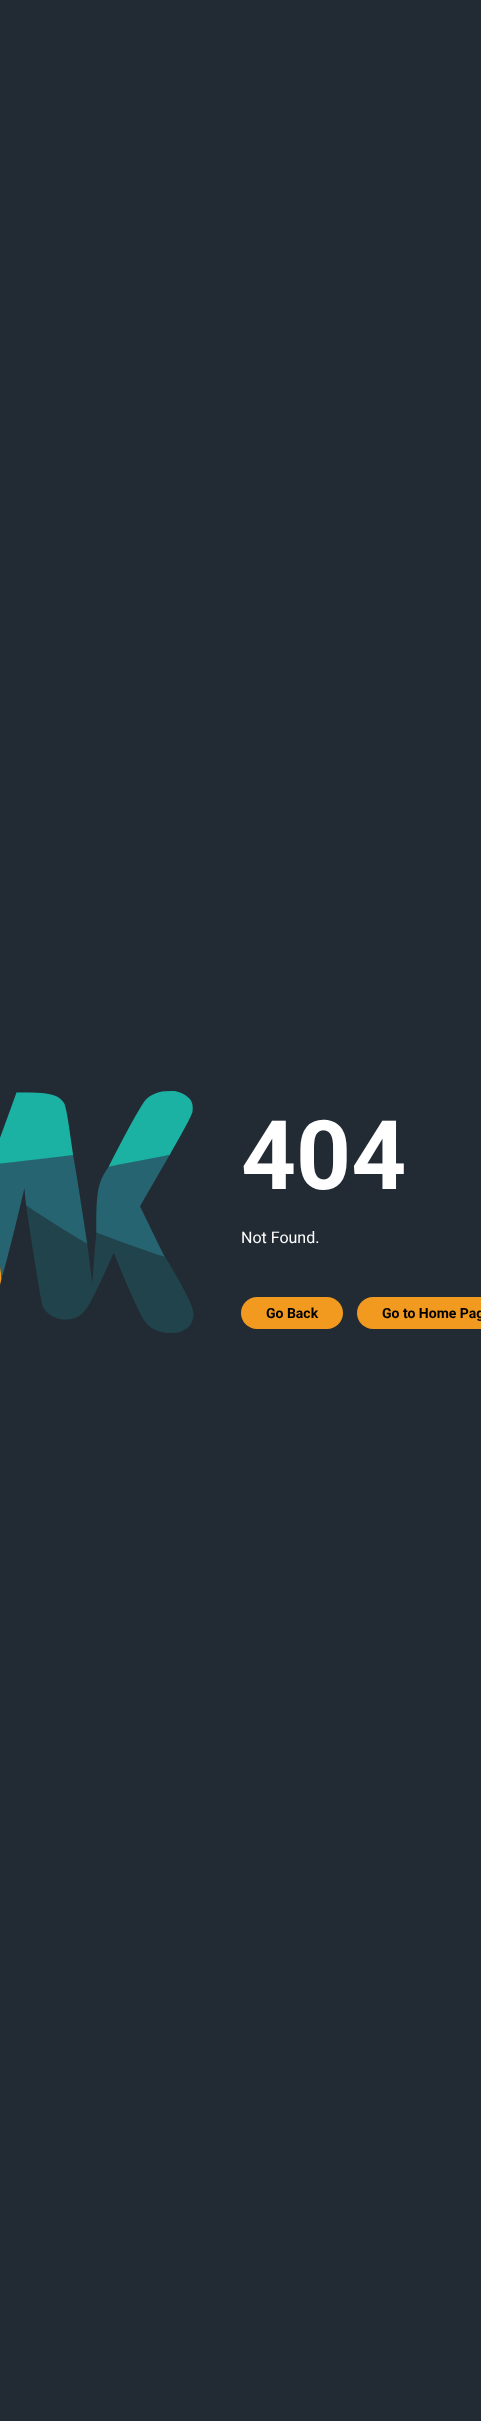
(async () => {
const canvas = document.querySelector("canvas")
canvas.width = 481
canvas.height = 2421
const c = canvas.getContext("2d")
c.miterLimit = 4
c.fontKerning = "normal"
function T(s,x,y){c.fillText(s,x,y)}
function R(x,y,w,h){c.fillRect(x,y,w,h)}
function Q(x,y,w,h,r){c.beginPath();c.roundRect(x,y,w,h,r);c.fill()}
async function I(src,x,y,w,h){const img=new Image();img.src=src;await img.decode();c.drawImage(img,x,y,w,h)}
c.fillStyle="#222b34"
R(0,0,481,2421)
await I("1.png",0,1091,194,242)
c.font="bold 96px Roboto"
c.fillStyle="#fff"
T("404",241,1189)
c.font="16px Roboto"
T("Not Found.",241,1243)
c.fillStyle="#f29a1f"
Q(241,1297,102,32,16)
c.font="bold 14px Roboto"
c.fillStyle="#000"
T("Go Back",266,1318)
c.fillStyle="#f29a1f"
Q(357,1297,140,32,16)
c.fillStyle="#000"
T("Go to Home Pag",382,1318)
})()
